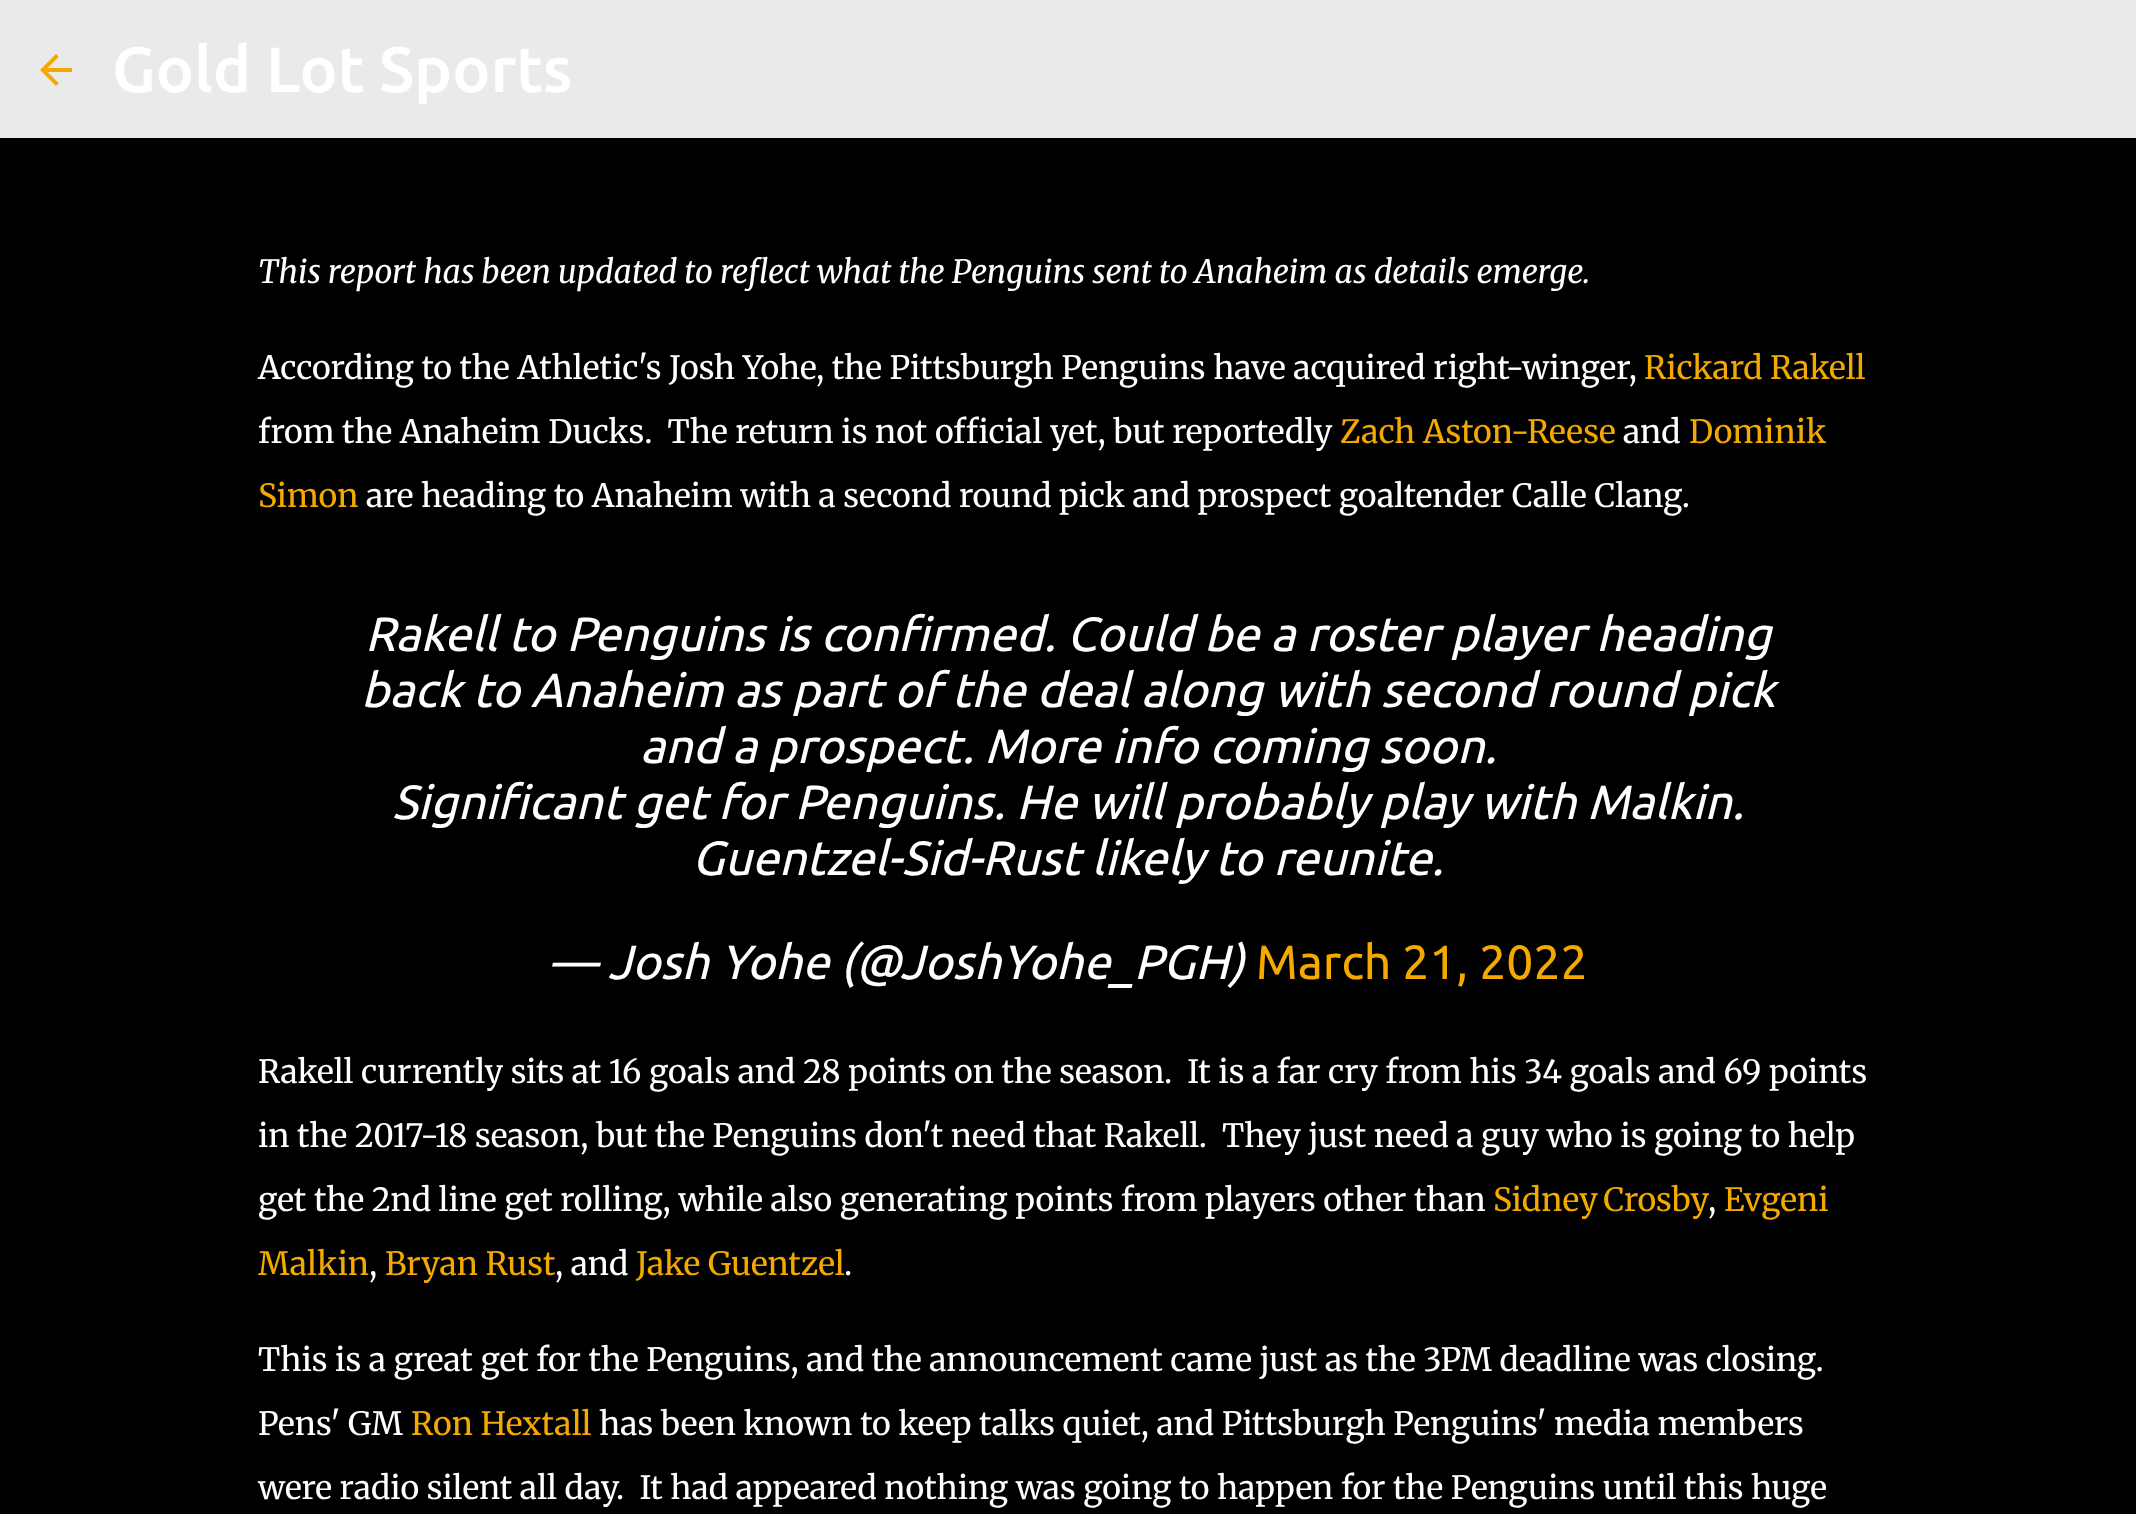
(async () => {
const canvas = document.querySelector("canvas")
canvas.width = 2136
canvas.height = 1514
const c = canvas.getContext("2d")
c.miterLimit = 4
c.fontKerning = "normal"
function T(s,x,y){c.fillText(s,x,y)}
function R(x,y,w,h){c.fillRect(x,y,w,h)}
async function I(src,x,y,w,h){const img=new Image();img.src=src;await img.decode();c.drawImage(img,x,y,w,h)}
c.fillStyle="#000"
R(0,0,2136,1514)
c.fillStyle="#eaeaea"
R(0,0,2136,138)
await I("1.png",40,54,32,32)
c.font="500 64px Ubuntu"
c.fillStyle="#fff"
T("Gold Lot Sports",112,92)
c.font="italic 32px Merriweather"
T("This report has been updated to reflect what the Penguins sent to Anaheim as details emerge.",258,283)
c.font="32px Merriweather"
T("According to the Athletic's Josh Yohe, the Pittsburgh Penguins have acquired right-winger,",258,379)
c.fillStyle="#f4a900"
T("Rickard Rakell",1644,379)
c.fillStyle="#fff"
T("from the Anaheim Ducks.  The return is not official yet, but reportedly",258,443)
c.fillStyle="#f4a900"
T("Zach Aston-Reese",1340,443)
c.fillStyle="#fff"
T("and",1623,443)
c.fillStyle="#f4a900"
T("Dominik",1689,443)
T("Simon",258,507)
c.fillStyle="#fff"
T("are heading to Anaheim with a second round pick and prospect goaltender Calle Clang.",366,507)
c.font="italic 48px Ubuntu"
T("Rakell to Penguins is confirmed. Could be a roster player heading",365,651)
T("back to Anaheim as part of the deal along with second round pick",361,707)
T("and a prospect. More info coming soon.",640,763)
T("Significant get for Penguins. He will probably play with Malkin.",392,819)
T("Guentzel-Sid-Rust likely to reunite.",692,875)
T("— Josh Yohe (@JoshYohe_PGH)",549,979)
c.font="48px Ubuntu"
c.fillStyle="#f4a900"
T("March 21, 2022",1256,979)
c.font="32px Merriweather"
c.fillStyle="#fff"
T("Rakell currently sits at 16 goals and 28 points on the season.  It is a far cry from his 34 goals and 69 points",258,1083)
T("in the 2017-18 season, but the Penguins don't need that Rakell.  They just need a guy who is going to help",258,1147)
T("get the 2nd line get rolling, while also generating points from players other than",258,1211)
c.wordSpacing="-2px"
c.fillStyle="#f4a900"
T("Sidney Crosby",1493,1211)
c.wordSpacing="0px"
c.fillStyle="#fff"
T(",",1708,1211)
c.fillStyle="#f4a900"
T("Evgeni",1724,1211)
T("Malkin",258,1275)
c.fillStyle="#fff"
T(",",369,1275)
c.fillStyle="#f4a900"
T("Bryan Rust",385,1275)
c.fillStyle="#fff"
T(", and",555,1275)
c.fillStyle="#f4a900"
T("Jake Guentzel",636,1275)
c.fillStyle="#fff"
T(".",844,1275)
T("This is a great get for the Penguins, and the announcement came just as the 3PM deadline was closing.",258,1371)
T("Pens' GM",258,1435)
c.fillStyle="#f4a900"
T("Ron Hextall",411,1435)
c.fillStyle="#fff"
T("has been known to keep talks quiet, and Pittsburgh Penguins' media members",599,1435)
T("were radio silent all day.  It had appeared nothing was going to happen for the Penguins until this huge",258,1499)
})()
